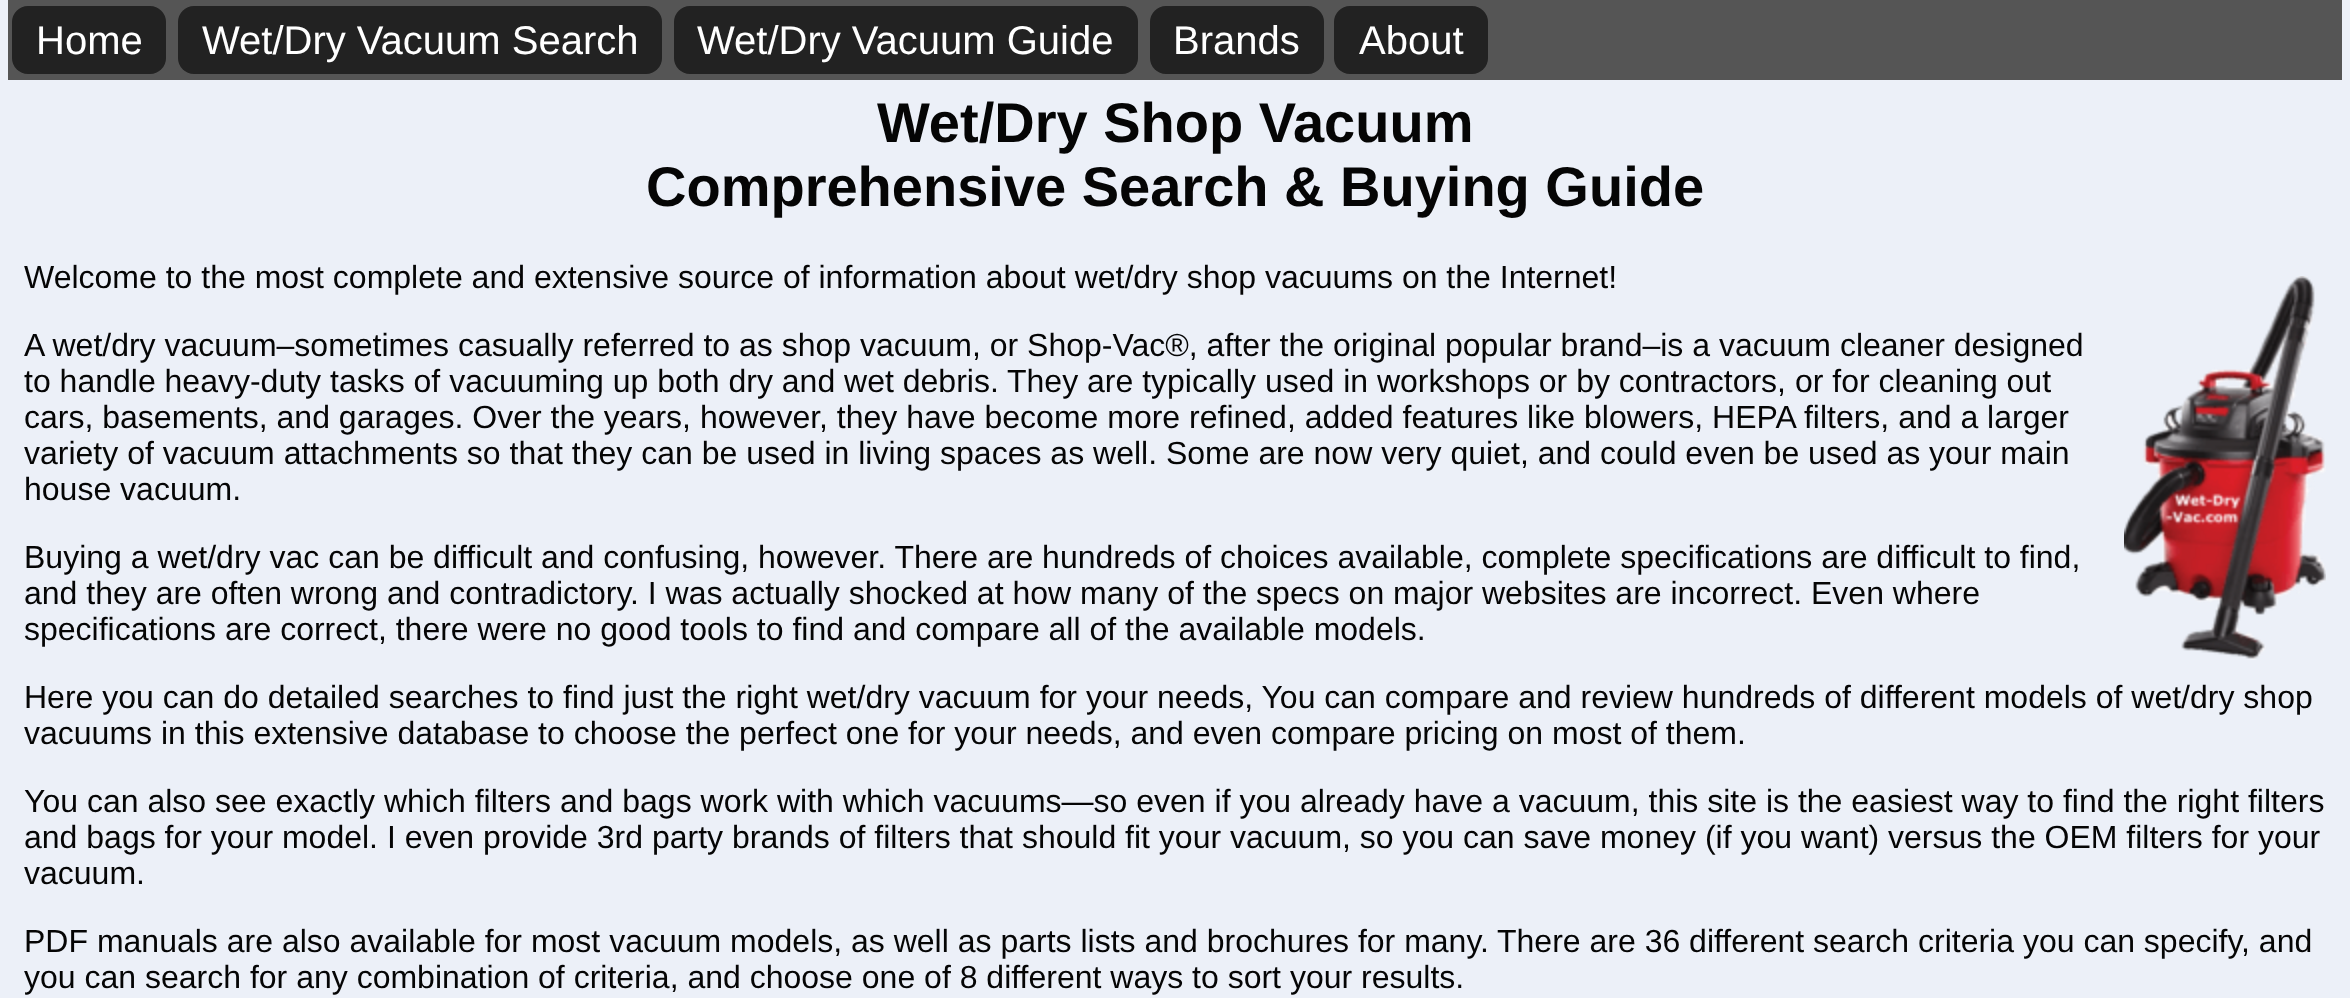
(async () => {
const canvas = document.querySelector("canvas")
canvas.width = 2350
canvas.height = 998
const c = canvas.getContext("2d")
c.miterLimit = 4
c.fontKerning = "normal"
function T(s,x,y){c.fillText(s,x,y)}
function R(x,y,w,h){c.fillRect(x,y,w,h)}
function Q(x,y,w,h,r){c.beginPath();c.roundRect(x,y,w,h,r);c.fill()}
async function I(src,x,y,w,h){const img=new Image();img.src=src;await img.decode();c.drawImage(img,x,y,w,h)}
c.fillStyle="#ecf0f8"
R(0,0,2350,998)
c.fillStyle="#555"
R(8,0,2334,80)
c.fillStyle="#222"
Q(12,6,154,68,16)
c.font="40px Liberation Sans"
c.fillStyle="#fff"
T("Home",36,54)
c.fillStyle="#222"
Q(178,6,484,68,16)
c.fillStyle="#fff"
T("Wet/Dry Vacuum Search",202,54)
c.fillStyle="#222"
Q(674,6,464,68,16)
c.fillStyle="#fff"
T("Wet/Dry Vacuum Guide",697,54)
c.fillStyle="#222"
Q(1150,6,174,68,16)
c.fillStyle="#fff"
T("Brands",1173,54)
c.fillStyle="#222"
Q(1334,6,154,68,16)
c.fillStyle="#fff"
T("About",1359,54)
c.font="bold 56px Liberation Sans"
c.fillStyle="#050505"
T("Wet/Dry Shop Vacuum",877,142)
T("Comprehensive Search & Buying Guide",646,206)
c.font="32px Liberation Sans"
T("Welcome to the most complete and extensive source of information about wet/dry shop vacuums on the Internet!",24,288)
await I("1.png",2124,276,202,384)
T("A wet/dry vacuum–sometimes casually referred to as shop vacuum, or Shop-Vac®, after the original popular brand–is a vacuum cleaner designed",24,356)
T("to handle heavy-duty tasks of vacuuming up both dry and wet debris.",24,392)
T("They are typically used in workshops or by contractors, or for cleaning out",1007,392)
T("cars, basements, and garages. Over the years, however, they have become more refined, added features like blowers, HEPA filters, and a larger",24,428)
T("variety of vacuum attachments so that they can be used in living spaces as well. Some are now very quiet, and could even be used as your main",24,464)
T("house vacuum.",24,500)
T("Buying a wet/dry vac can be difficult and confusing, however. There are hundreds of choices available, complete specifications are difficult to find,",24,568)
T("and they are often wrong and contradictory. I was actually shocked at how many of the specs on major websites are incorrect. Even where",24,604)
T("specifications are correct, there were no good tools to find and compare all of the available models.",24,640)
T("Here you can do detailed searches to find just the right wet/dry vacuum for your needs, You can compare and review hundreds of different models of wet/dry shop",24,708)
T("vacuums in this extensive database to choose the perfect one for your needs, and even compare pricing on most of them.",24,744)
T("You can also see exactly which filters and bags work with which vacuums—so even if you already have a vacuum, this site is the easiest way to find the right filters",24,812)
T("and bags for your model. I even provide 3rd party brands of filters that should fit your vacuum, so you can save money (if you want) versus the OEM filters for your",24,848)
T("vacuum.",24,884)
T("PDF manuals are also available for most vacuum models, as well as parts lists and brochures for many.",24,952)
T("There are 36 different search criteria you can specify, and",1497,952)
T("you can search for any combination of criteria, and choose one of 8 different ways to sort your results.",24,988)
})()
